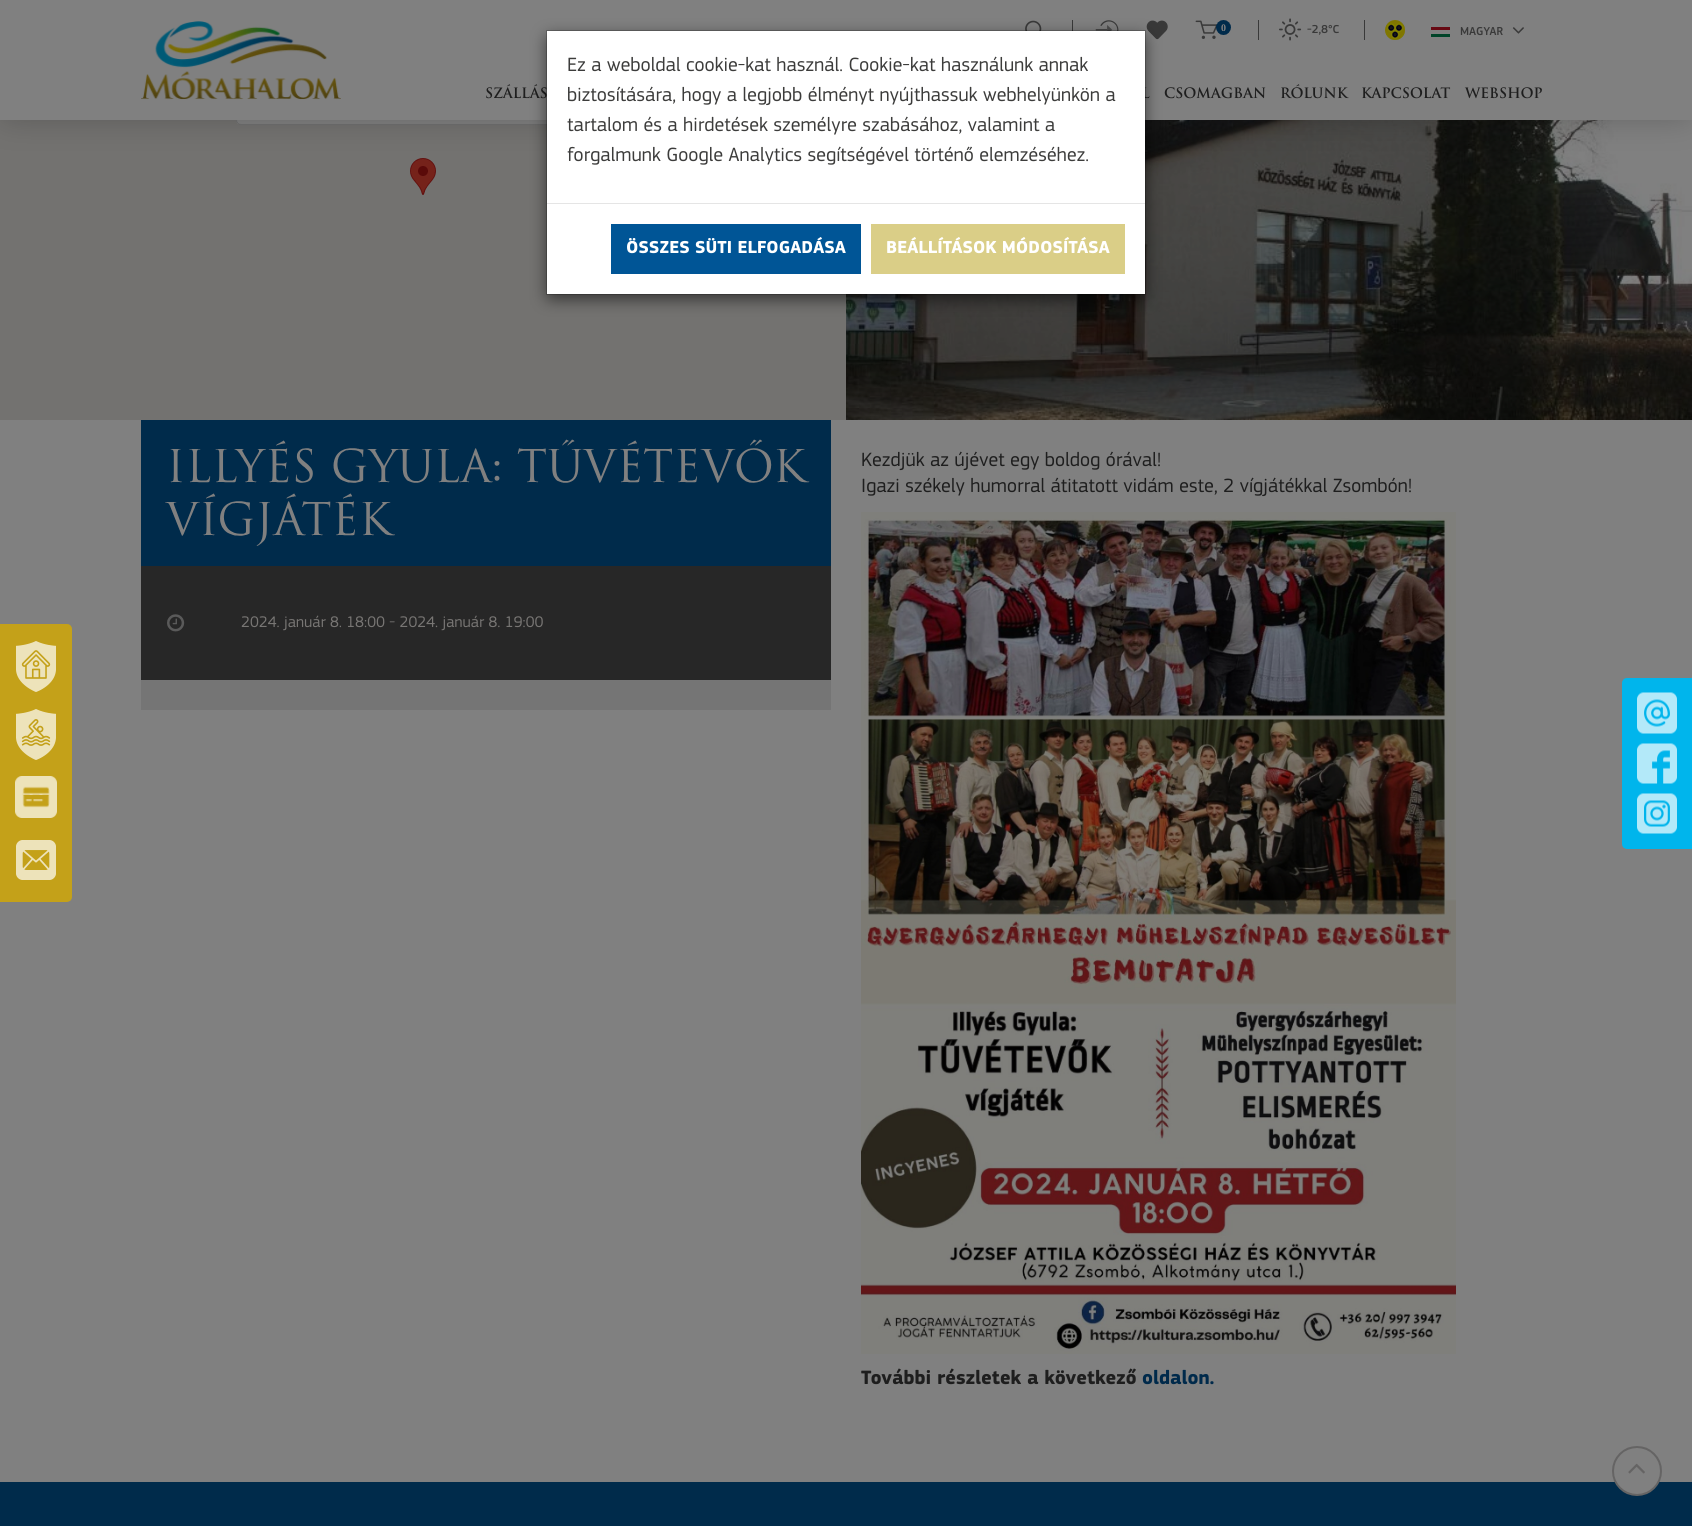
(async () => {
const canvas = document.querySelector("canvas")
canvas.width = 1692
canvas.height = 1526
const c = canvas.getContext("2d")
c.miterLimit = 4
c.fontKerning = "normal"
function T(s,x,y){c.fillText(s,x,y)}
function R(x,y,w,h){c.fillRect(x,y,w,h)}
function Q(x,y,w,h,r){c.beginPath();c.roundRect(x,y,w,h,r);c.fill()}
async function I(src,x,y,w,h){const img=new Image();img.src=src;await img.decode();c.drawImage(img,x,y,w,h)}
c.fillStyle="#808080"
R(0,0,1692,1526)
c.fillStyle="#737270"
R(0,120,846,300)
c.fillStyle="#808080"
Q(236,-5,375,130,5)
c.beginPath()
c.roundRect(236.5,-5.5,374,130,4.5)
c.strokeStyle="#0000001f"
c.stroke()
await I("30.png",410,158,26,37)
await I("31.png",846,120,846,300)
c.fillStyle="#00000033"
c.filter="blur(15px)"
c.beginPath()
c.rect(0,0,1692,120)
c.fill()
c.filter="none"
c.fillStyle="#808080"
R(0,0,1692,120)
await I("8.png",1025,20,17,11)
c.fillStyle="#393939"
R(1072,20,1,11)
await I("9.png",1095,20,24,11)
await I("10.png",1146,20,22,20)
await I("17.png",486,84,61,15)
await I("18.png",1145,87,5,12)
await I("19.png",1164,87,102,12)
c.fillStyle="#00000080"
c.filter="blur(7.5px)"
c.beginPath()
c.rect(546,35,600,265)
c.fill()
c.filter="none"
c.fillStyle="#fff"
R(547,31,598,263)
c.strokeStyle="#00000033"
c.strokeRect(546.5,30.5,599,264)
await I("1.png",568,56,520,16)
await I("2.png",568,86,548,20)
await I("3.png",567,116,488,19)
await I("4.png",567,146,521,19)
c.fillStyle="#e5e5e5"
R(547,203,598,1)
c.fillStyle="#005596"
R(611,224,250,50)
await I("5.png",627,237,219,17)
c.fillStyle="#dace87"
R(871,224,254,50)
await I("6.png",887,237,223,17)
await I("7.png",141,21,200,79)
await I("11.png",1195,20,22,19)
c.fillStyle="#002b4b"
c.beginPath()
c.arc(1223.5,27.5,7.5,0,7)
c.fill()
c.font="bold 10px Liberation Serif"
c.fillStyle="#808080"
T("0",1221,31)
c.fillStyle="#393939"
R(1258,20,1,20)
await I("12.png",1279,18,23,23)
await I("13.png",1307,24,32,11)
R(1364,20,1,20)
await I("14.png",1385,20,20,20)
c.fillStyle="#670913"
R(1431,27,19,3)
await I("15.png",1460,27,43,9)
await I("16.png",1512,27,12,7)
c.fillStyle="#004429"
R(1431,34,19,3)
await I("20.png",1281,84,68,15)
await I("21.png",1362,87,89,12)
await I("22.png",1464,87,78,12)
c.fillStyle="#c4a119"
c.beginPath()
c.roundRect(0,624,72,278,[0,5,5,0])
c.fill()
await I("23.png",16,641,40,51)
await I("24.png",16,709,40,51)
await I("25.png",15,776,42,42)
await I("26.png",16,840,40,40)
c.fillStyle="#00b5ec"
c.beginPath()
c.roundRect(1622,678,70,171,[5,0,0,5])
c.fill()
await I("27.png",1637,692,40,42)
await I("28.png",1637,743,40,41)
await I("29.png",1637,793,40,41)
c.fillStyle="#002b4b"
R(141,420,690,146)
c.font="44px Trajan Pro"
c.fillStyle="#808080"
T("ILLYÉS GYULA: TŰVÉTEVŐK",166,482)
T("VÍGJÁTÉK",166,535)
c.fillStyle="#272727"
R(141,566,690,114)
await I("32.png",167,614,18,18)
await I("33.png",241,615,302,16)
c.fillStyle="#757575"
R(141,680,690,30)
await I("34.png",862,451,298,20)
await I("35.png",862,477,549,20)
await I("36.png",861,512,595,842)
await I("37.png",861,1368,275,17)
await I("38.png",1142,1369,72,16)
c.fillStyle="#002b4b"
R(0,1482,1692,44)
c.fillStyle="#808080"
c.beginPath()
c.arc(1637,1471,24,0,7)
c.fill()
c.strokeStyle="#656464"
c.lineWidth=2
c.stroke()
await I("39.png",1628,1463,17,11)
})()
